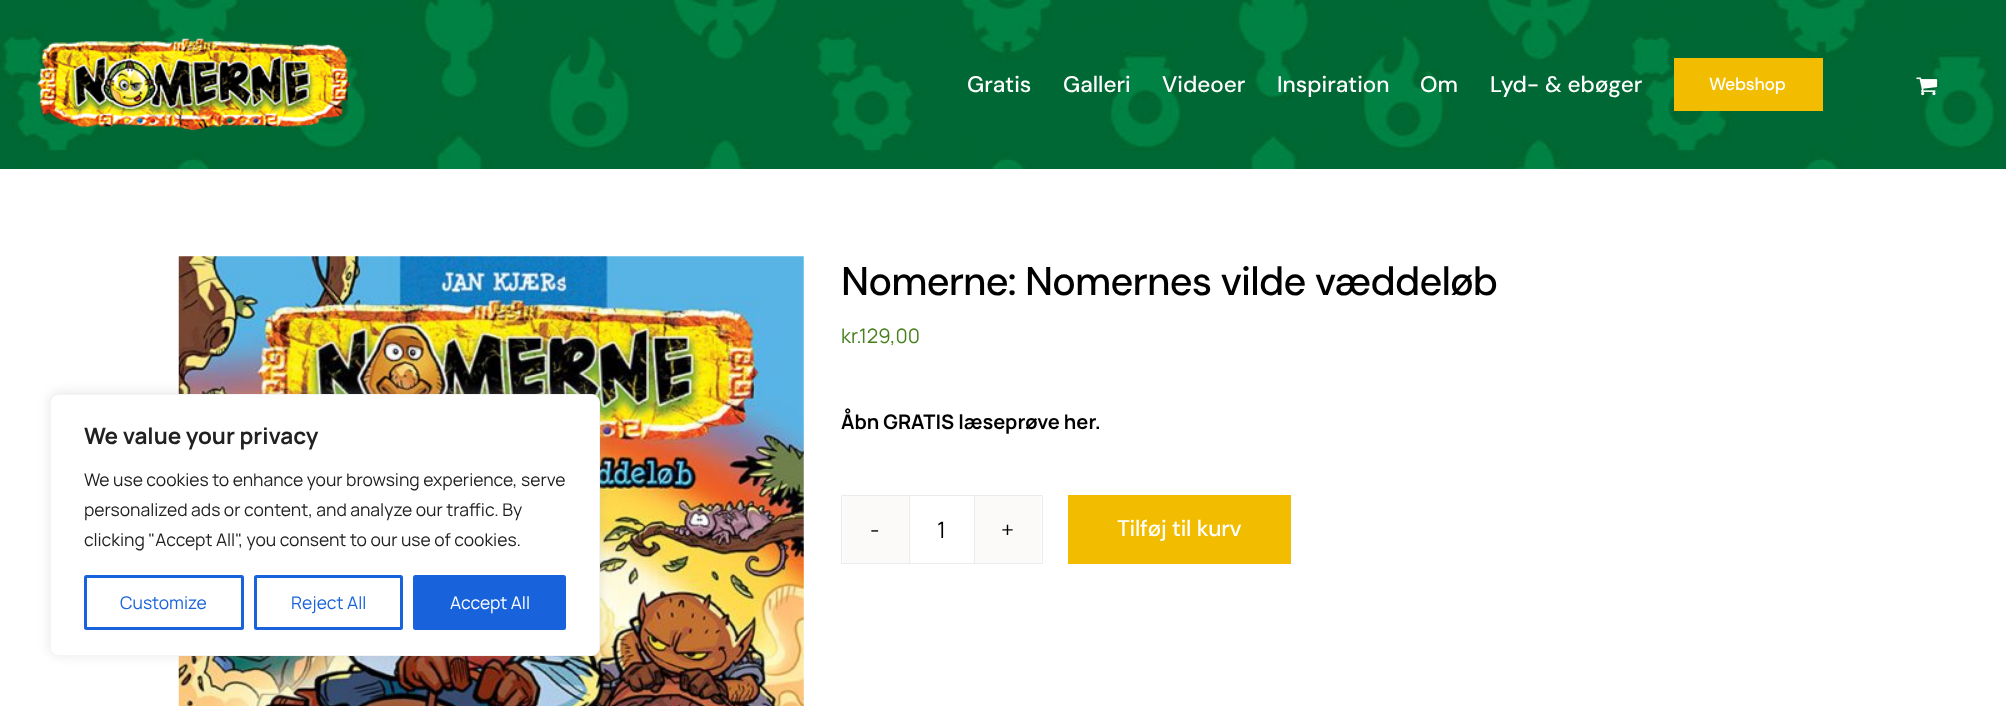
(async () => {
const canvas = document.querySelector("canvas")
canvas.width = 2006
canvas.height = 706
const c = canvas.getContext("2d")
c.miterLimit = 4
c.fontKerning = "normal"
function T(s,x,y){c.fillText(s,x,y)}
function R(x,y,w,h){c.fillRect(x,y,w,h)}
async function I(src,x,y,w,h){const img=new Image();img.src=src;await img.decode();c.drawImage(img,x,y,w,h)}
c.fillStyle="#fff"
R(0,0,2006,706)
await I("4.png",178,256,626,450)
c.fillStyle="#acabab4d"
c.filter="blur(6px)"
c.beginPath()
c.roundRect(50,393,550,262,8)
c.fill()
c.filter="none"
c.fillStyle="#fff"
c.beginPath()
c.roundRect(50.5,394.5,549,261,7.5)
c.fill()
c.strokeStyle="#f4f4f4"
c.stroke()
c.font="bold 22.5px Manrope"
c.fillStyle="#212121"
T("We value your privacy",84,444)
c.font="17.5px Manrope"
T("We use cookies to enhance your browsing experience, serve",84,486)
T("personalized ads or content, and analyze our traffic. By",84,516)
T("clicking \"Accept All\", you consent to our use of cookies.",84,546)
c.beginPath()
c.roundRect(85.5,576.5,157,52,1)
c.strokeStyle="#1863dc"
c.lineWidth=3
c.stroke()
c.fillStyle="#1863dc"
T("Customize",120,609)
c.beginPath()
c.roundRect(255.5,576.5,146,52,1)
c.stroke()
T("Reject All",291,609)
c.beginPath()
c.roundRect(414.5,576.5,150,52,1)
c.fill()
c.stroke()
c.fillStyle="#fff"
T("Accept All",450,609)
await I("1.png",0,0,2006,169)
await I("2.png",37,38,313,92)
c.font="500 22.5px DM Sans"
T("Gratis",967,92)
T("Galleri",1063,92)
T("Videoer",1162,92)
T("Inspiration",1277,92)
T("Om",1420,92)
T("Lyd- & ebøger",1490,92)
c.fillStyle="#f2bd00"
R(1674,58,149,53)
c.letterSpacing="-0.25px"
c.font="500 17.5px DM Sans"
c.fillStyle="#fff"
T("Webshop",1709,90)
await I("3.png",1916,77,22,19)
c.letterSpacing="-0.95px"
c.font="500 40px DM Sans"
c.fillStyle="#000"
T("Nomerne: Nomernes vilde væddeløb",841,295)
c.letterSpacing="0px"
c.font="20px Manrope"
c.fillStyle="#48801e"
T("kr.",841,343)
T("129,00",859,343)
c.font="bold 20px Manrope"
c.fillStyle="#000"
T("Åbn GRATIS læseprøve her.",841,429)
c.beginPath()
c.roundRect(841.5,495.5,201,68,.5)
c.strokeStyle="#ebebeb"
c.lineWidth=1
c.stroke()
c.fillStyle="#fbfaf9"
R(843,496,66,67)
c.font="22.5px Manrope"
c.fillStyle="#000"
T("-",870,538)
c.fillStyle="#ebebeb"
R(974,496,1,67)
R(909,496,1,67)
c.fillStyle="#000"
T("1",937,538)
c.fillStyle="#fbfaf9"
R(975,496,66,67)
c.fillStyle="#000"
T("+",1001,538)
c.fillStyle="#f2bd00"
R(1068,495,223,69)
c.letterSpacing="-0.25px"
c.font="500 22.5px DM Sans"
c.fillStyle="#fff"
T("Tilføj til kurv",1117,536)
})()
